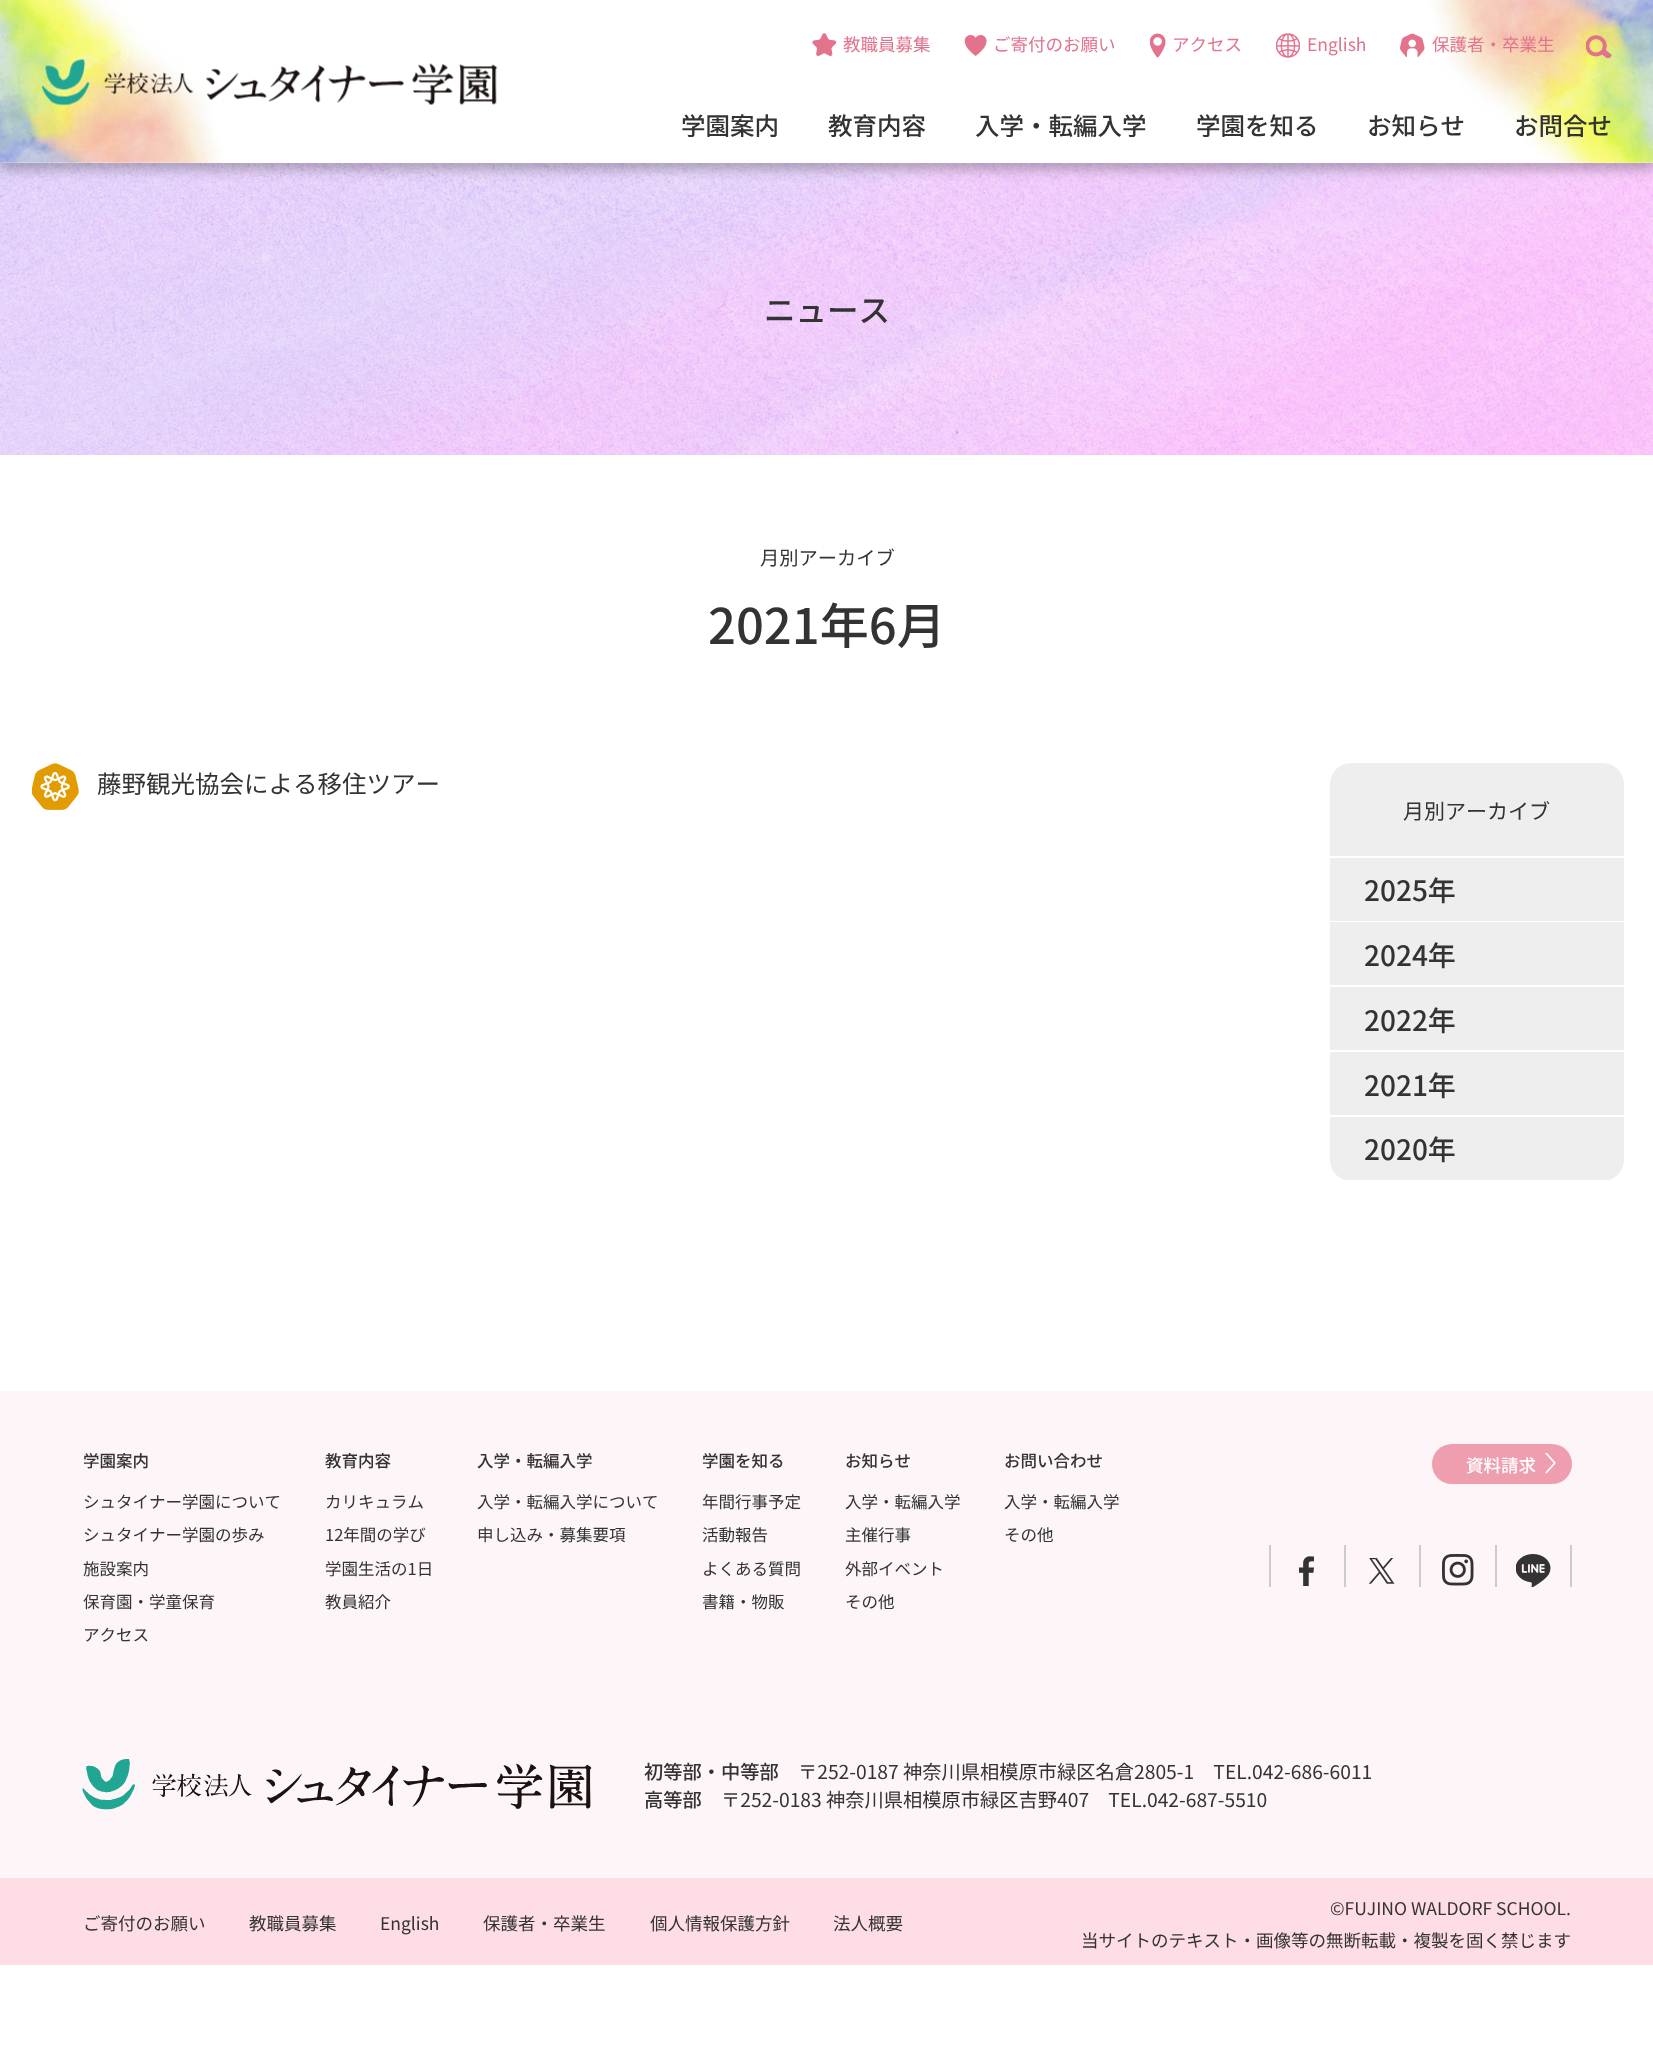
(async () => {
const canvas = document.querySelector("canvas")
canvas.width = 1653
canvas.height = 2070
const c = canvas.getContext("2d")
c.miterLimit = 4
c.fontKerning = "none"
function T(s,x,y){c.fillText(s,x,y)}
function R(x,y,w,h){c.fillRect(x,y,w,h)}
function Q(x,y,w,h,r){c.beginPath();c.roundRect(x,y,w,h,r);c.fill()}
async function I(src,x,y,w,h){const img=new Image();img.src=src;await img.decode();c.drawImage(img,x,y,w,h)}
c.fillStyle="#fff"
R(0,0,1653,2070)
await I("9.png",0,163,1653,292)
c.fillStyle="#2828284d"
c.filter="blur(6px)"
c.beginPath()
c.rect(0,7,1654,163)
c.fill()
c.filter="none"
c.fillStyle="#fff"
R(0,0,1653,163)
await I("1.png",0,0,1653,163)
await I("2.png",42,59,456,47)
await I("3.png",812,33,24,23)
c.font="17.5px Noto Sans JP"
c.fillStyle="#e3728c"
T("教職員募集",843,51)
await I("4.png",964,35,23,21)
T("ご寄付のお願い",993,51)
await I("5.png",1150,33,16,25)
T("アクセス",1172,51)
await I("6.png",1276,33,24,25)
T("English",1307,51)
await I("7.png",1400,33,25,25)
T("保護者・卒業生",1432,51)
await I("8.png",1586,35,26,23)
c.font="500 24.5px Noto Sans JP"
c.fillStyle="#333"
T("学園案内",681,135)
T("教育内容",828,135)
T("入学・転編入学",975,135)
T("学園を知る",1196,135)
T("お知らせ",1367,135)
T("お問合せ",1514,135)
c.font="500 31.5px Noto Sans JP"
T("ニュース",764,322)
c.font="19.25px Noto Sans JP"
T("月別アーカイブ",760,565)
c.font="500 49px Noto Sans JP"
T("2021年6月",708,644)
await I("10.png",32,763,47,47)
c.font="24.5px Noto Sans JP"
T("藤野観光協会による移住ツアー",97,793)
c.fillStyle="#eee"
c.beginPath()
c.roundRect(1330,763,294,95,[21,21,0,0])
c.fill()
c.fillStyle="#fff"
R(1330,856,294,2)
c.font="21px Noto Sans JP"
c.fillStyle="#333"
T("月別アーカイブ",1403,819)
c.fillStyle="#eee"
R(1330,858,294,63)
c.font="500 28px Noto Sans JP"
c.fillStyle="#333"
T("2025年",1364,901)
c.fillStyle="#eee"
R(1330,922,294,63)
c.fillStyle="#333"
T("2024年",1364,966)
c.fillStyle="#eee"
R(1330,987,294,63)
c.fillStyle="#333"
T("2022年",1364,1031)
c.fillStyle="#eee"
R(1330,1052,294,63)
c.fillStyle="#333"
T("2021年",1364,1096)
c.fillStyle="#eee"
c.beginPath()
c.roundRect(1330,1117,294,64,[0,0,21,21])
c.fill()
c.save()
c.beginPath()
c.roundRect(1330,1117,294,64,[0,0,21,21])
c.clip()
c.fillStyle="#fff"
R(1344,1180,266,1)
c.restore()
c.fillStyle="#333"
T("2020年",1364,1160)
c.fillStyle="#fdf5f7"
R(0,1391,1653,487)
c.font="500 16.5px Noto Sans JP"
c.fillStyle="#333"
T("学園案内",83,1467)
c.font="16.5px Noto Sans JP"
T("シュタイナー学園について",83,1508)
T("シュタイナー学園の歩み",83,1541)
T("施設案内",83,1575)
T("保育園・学童保育",83,1608)
T("アクセス",83,1641)
c.font="500 16.5px Noto Sans JP"
T("教育内容",325,1467)
c.font="16.5px Noto Sans JP"
T("カリキュラム",325,1508)
T("12年間の学び",325,1541)
T("学園生活の1日",325,1575)
T("教員紹介",325,1608)
c.font="500 16.5px Noto Sans JP"
T("入学・転編入学",477,1467)
c.font="16.5px Noto Sans JP"
T("入学・転編入学について",477,1508)
T("申し込み・募集要項",477,1541)
c.font="500 16.5px Noto Sans JP"
T("学園を知る",702,1467)
c.font="16.5px Noto Sans JP"
T("年間行事予定",702,1508)
T("活動報告",702,1541)
T("よくある質問",702,1575)
T("書籍・物販",702,1608)
c.font="500 16.5px Noto Sans JP"
T("お知らせ",845,1467)
c.font="16.5px Noto Sans JP"
T("入学・転編入学",845,1508)
T("主催行事",845,1541)
T("外部イベント",845,1575)
T("その他",845,1608)
c.font="500 16.5px Noto Sans JP"
T("お問い合わせ",1004,1467)
c.font="16.5px Noto Sans JP"
T("入学・転編入学",1004,1508)
T("その他",1004,1541)
c.fillStyle="#ef9eb0"
Q(1432,1444,140,40,20)
c.font="500 17.5px Noto Sans JP"
c.fillStyle="#fff"
T("資料請求",1466,1472)
await I("11.png",1545,1453,11,21)
c.fillStyle="#ccc"
R(1344,1545,2,42)
R(1269,1545,2,42)
await I("12.png",1299,1556,15,30)
R(1419,1545,2,42)
await I("13.png",1369,1558,26,26)
R(1495,1545,2,42)
await I("14.png",1442,1554,32,32)
R(1570,1545,2,42)
await I("15.png",1516,1554,35,33)
await I("16.png",82,1759,510,51)
c.font="500 19.25px Noto Sans JP"
c.fillStyle="#333"
T("初等部・中等部",644,1779)
c.font="19.25px Noto Sans JP"
T("〒252-0187 神奈川県相模原市緑区名倉2805-1　TEL.042-686-6011",798,1779)
c.font="500 19.25px Noto Sans JP"
T("高等部",644,1807)
c.font="19.25px Noto Sans JP"
T("〒252-0183 神奈川県相模原市緑区吉野407　TEL.042-687-5510",721,1807)
c.fillStyle="#ffdde4"
R(0,1878,1653,87)
c.font="17.5px Noto Sans JP"
c.fillStyle="#333"
T("ご寄付のお願い",83,1930)
T("教職員募集",249,1930)
T("English",380,1930)
T("保護者・卒業生",483,1930)
T("個人情報保護方針",650,1930)
T("法人概要",833,1930)
T("©FUJINO WALDORF SCHOOL.",1330,1915)
T("当サイトのテキスト・画像等の無断転載・複製を固く禁じます",1081,1947)
})()
